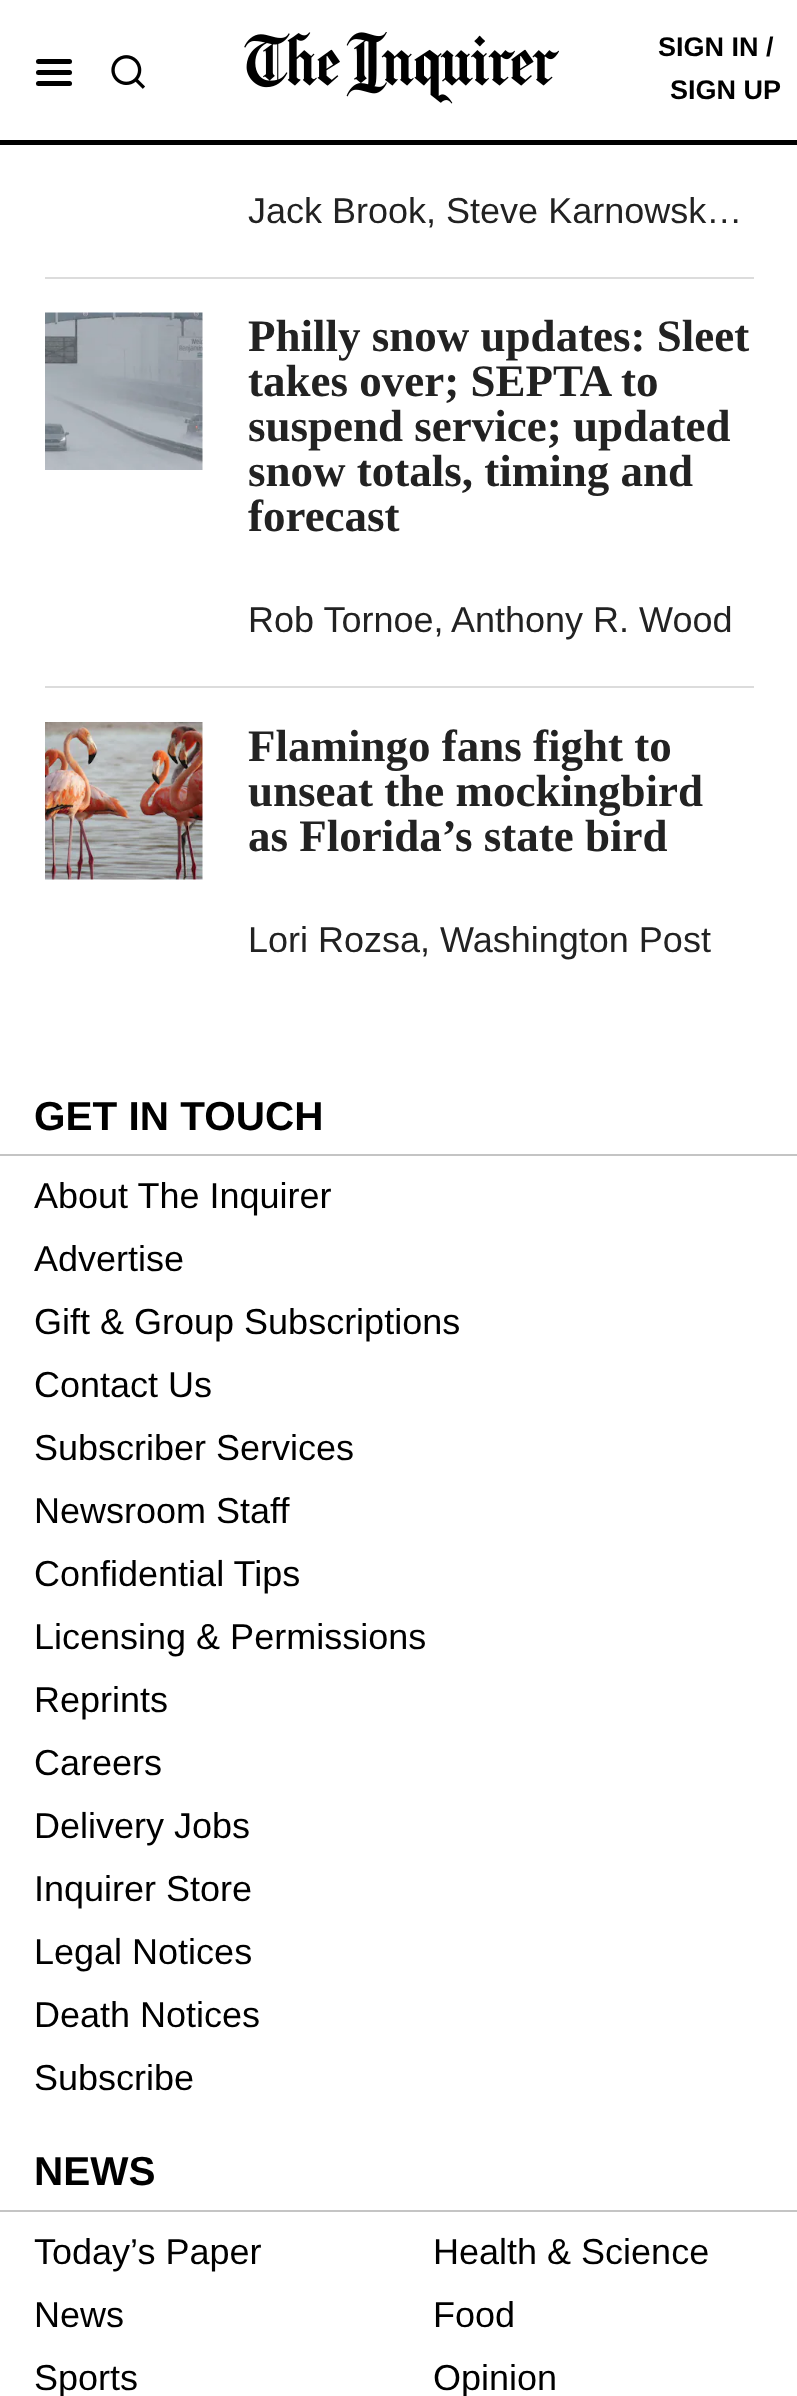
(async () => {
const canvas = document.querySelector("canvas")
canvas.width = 797
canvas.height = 2396
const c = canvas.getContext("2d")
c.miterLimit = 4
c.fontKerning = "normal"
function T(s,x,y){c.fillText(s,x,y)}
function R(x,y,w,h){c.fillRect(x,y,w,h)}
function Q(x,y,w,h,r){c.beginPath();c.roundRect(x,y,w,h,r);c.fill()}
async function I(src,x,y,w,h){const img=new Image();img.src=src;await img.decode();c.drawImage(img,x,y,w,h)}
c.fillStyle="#fff"
R(0,0,797,2396)
c.fillStyle="#000"
R(0,140,797,5)
Q(36,70,36,5,2.5)
Q(36,59,36,5,2.5)
Q(36,81,36,5,2.5)
await I("1.png",111,55,34,34)
await I("2.png",244,32,315,72)
c.font="bold 27px Liberation Sans"
T("SIGN IN /",658,56)
T("SIGN UP",670,99)
c.font="36px Liberation Sans"
c.fillStyle="#222"
T("Jack Brook, Steve Karnowsk…",248,223)
c.fillStyle="#dcdcdc"
R(45,277,709,2)
await I("3.png",45,312,158,158)
c.font="bold 45px Liberation Serif"
c.fillStyle="#222"
T("Philly snow updates: Sleet",248,351)
T("takes over; SEPTA to",248,396)
T("suspend service; updated",248,441)
T("snow totals, timing and",248,486)
T("forecast",248,531)
c.font="36px Liberation Sans"
T("Rob Tornoe,",248,632)
T("Anthony R. Wood",451,632)
c.fillStyle="#dcdcdc"
R(45,686,709,2)
await I("4.png",45,722,158,158)
c.font="bold 45px Liberation Serif"
c.fillStyle="#222"
T("Flamingo fans fight to",248,761)
T("unseat the mockingbird",248,806)
T("as Florida’s state bird",248,851)
c.font="36px Liberation Sans"
T("Lori Rozsa, Washington Post",248,952)
c.fillStyle="#c4c4c4"
R(0,1154,797,2)
c.font="bold 40.5px Liberation Sans"
c.fillStyle="#000"
T("GET IN TOUCH",34,1130)
c.font="36px Liberation Sans"
T("About The Inquirer",34,1208)
T("Advertise",34,1271)
T("Gift & Group Subscriptions",34,1334)
T("Contact Us",34,1397)
T("Subscriber Services",34,1460)
T("Newsroom Staff",34,1523)
T("Confidential Tips",34,1586)
T("Licensing & Permissions",34,1649)
T("Reprints",34,1712)
T("Careers",34,1775)
T("Delivery Jobs",34,1838)
T("Inquirer Store",34,1901)
T("Legal Notices",34,1964)
T("Death Notices",34,2027)
T("Subscribe",34,2090)
c.fillStyle="#c4c4c4"
R(0,2210,797,2)
c.font="bold 40.5px Liberation Sans"
c.fillStyle="#000"
T("NEWS",34,2185)
c.font="36px Liberation Sans"
T("Today’s Paper",34,2264)
T("News",34,2327)
T("Sports",34,2390)
T("Health & Science",433,2264)
T("Food",433,2327)
T("Opinion",433,2390)
})()
